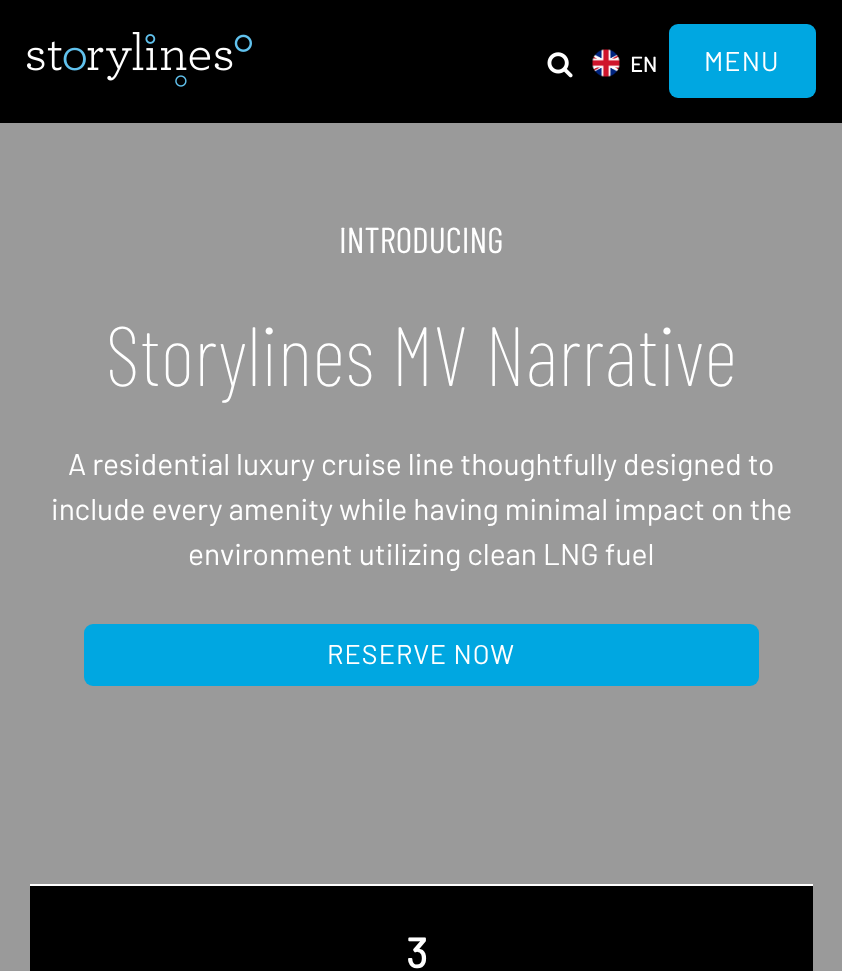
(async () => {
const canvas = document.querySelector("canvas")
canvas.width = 842
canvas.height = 971
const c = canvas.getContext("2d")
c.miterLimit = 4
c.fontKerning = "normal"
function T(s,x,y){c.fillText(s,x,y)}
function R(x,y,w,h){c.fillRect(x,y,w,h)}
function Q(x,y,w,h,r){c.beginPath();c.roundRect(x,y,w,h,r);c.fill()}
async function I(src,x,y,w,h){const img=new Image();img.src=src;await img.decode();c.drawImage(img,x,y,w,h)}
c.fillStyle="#9a9a9a"
R(0,0,842,971)
c.fillStyle="#000"
R(0,0,842,123)
await I("1.png",27,32,225,55)
await I("2.png",547,52,26,26)
await I("3.png",592,49,28,28)
c.font="bold 21px Barlow"
c.fillStyle="#fff"
T("EN",630,72)
c.fillStyle="#00a7e1"
Q(669,24,147,74,9)
c.letterSpacing="1px"
c.font="27px Barlow"
c.fillStyle="#fff"
T("MENU",704,71)
c.letterSpacing="0px"
c.font="36px Barlow Condensed"
T("INTRODUCING",339,253)
c.font="100 84px Barlow Condensed"
T("Storylines MV Narrative",106,386)
c.font="30px Barlow"
T("A residential luxury cruise line thoughtfully designed to",68,475)
T("include every amenity while having minimal impact on the",51,520)
T("environment utilizing clean LNG fuel",188,565)
c.fillStyle="#00a7e1"
Q(84,624,675,62,9)
c.letterSpacing="1px"
c.font="27px Barlow"
c.fillStyle="#fff"
T("RESERVE NOW",327,664)
c.fillStyle="#000"
R(30,886,783,85)
c.fillStyle="#fff"
R(30,884,783,2)
c.letterSpacing="0px"
c.font="bold 42px Barlow"
T("3",406,968)
})()
